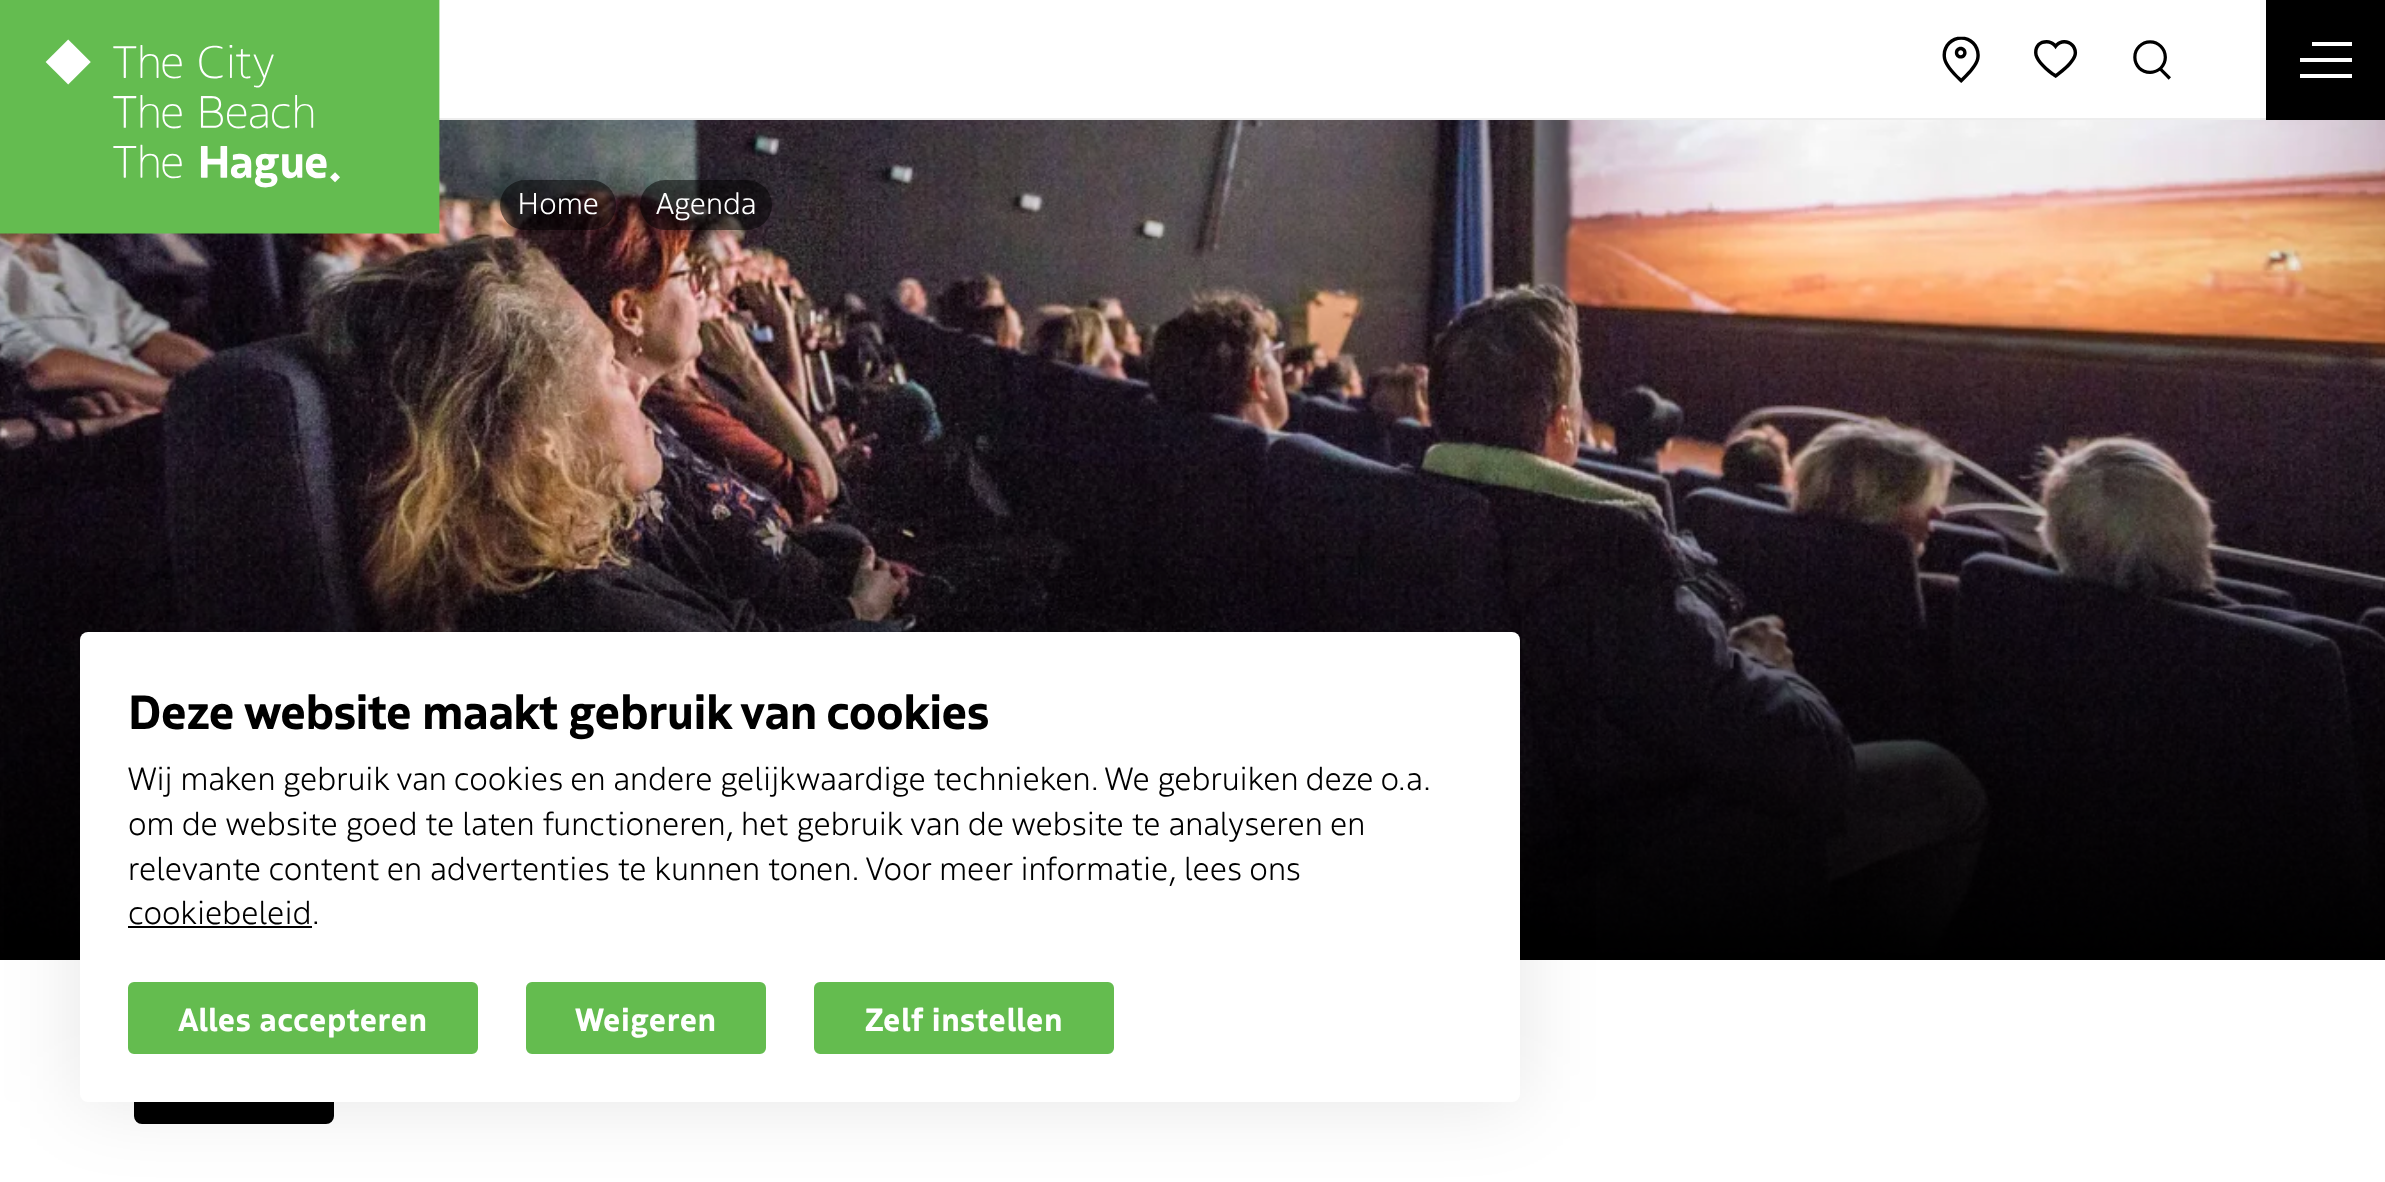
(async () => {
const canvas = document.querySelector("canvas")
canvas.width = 2385
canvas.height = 1182
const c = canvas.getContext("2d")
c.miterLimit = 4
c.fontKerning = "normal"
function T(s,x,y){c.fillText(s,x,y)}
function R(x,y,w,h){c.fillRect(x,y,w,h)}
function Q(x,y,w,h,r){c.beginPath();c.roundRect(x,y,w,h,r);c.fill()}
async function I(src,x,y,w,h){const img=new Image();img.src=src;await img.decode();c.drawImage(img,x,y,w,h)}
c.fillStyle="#fff"
R(0,0,2385,1182)
c.fillStyle="#ededed"
R(439,118,1827,2)
await I("5.png",0,120,2385,840)
await I("1.png",0,0,440,234)
await I("2.png",1942,36,38,47)
await I("3.png",2034,40,44,38)
await I("4.png",2133,40,38,40)
c.fillStyle="#000"
R(2266,0,119,120)
c.fillStyle="#fff"
R(2300,58,52,4)
R(2312,42,40,4)
R(2300,74,52,4)
c.fillStyle="#000"
c.beginPath()
c.roundRect(135,1041,198,82,7)
c.fill()
c.strokeStyle="#000"
c.lineWidth=2
c.stroke()
c.fillStyle="#00000080"
Q(500,180,116,50,25)
c.font="300 30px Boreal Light"
c.fillStyle="#fff"
T("Home",517,214)
c.fillStyle="#00000080"
Q(640,180,132,50,25)
c.fillStyle="#fff"
T("Agenda",656,214)
c.fillStyle="#0000001a"
c.filter="blur(40px)"
c.beginPath()
c.roundRect(80,632,1440,470,8)
c.fill()
c.filter="none"
c.fillStyle="#fff"
Q(80,632,1440,470,8)
c.letterSpacing="-1.45px"
c.font="bold 48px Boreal"
c.fillStyle="#000"
T("Deze website maakt gebruik van cookies",128,729)
c.letterSpacing="0px"
c.wordSpacing="-0.25px"
c.font="300 32px Boreal Light"
T("Wij maken gebruik van cookies en andere gelijkwaardige technieken. We gebruiken deze o.a.",128,790)
c.wordSpacing="0px"
T("om de website goed te laten functioneren, het gebruik van de website te analyseren en",128,835)
T("relevante content en advertenties te kunnen tonen. Voor meer informatie, lees ons",128,880)
T("cookiebeleid.",128,924)
R(128,926,184,2)
c.fillStyle="#64bc4f"
c.beginPath()
c.roundRect(129,983,348,70,5)
c.fill()
c.strokeStyle="#64bc4f"
c.stroke()
c.font="bold 32px Boreal"
c.fillStyle="#fff"
T("Alles accepteren",178,1031)
c.fillStyle="#64bc4f"
c.beginPath()
c.roundRect(527,983,238,70,5)
c.fill()
c.stroke()
c.fillStyle="#fff"
T("Weigeren",575,1031)
c.fillStyle="#64bc4f"
c.beginPath()
c.roundRect(815,983,298,70,5)
c.fill()
c.stroke()
c.fillStyle="#fff"
T("Zelf instellen",864,1031)
})()
